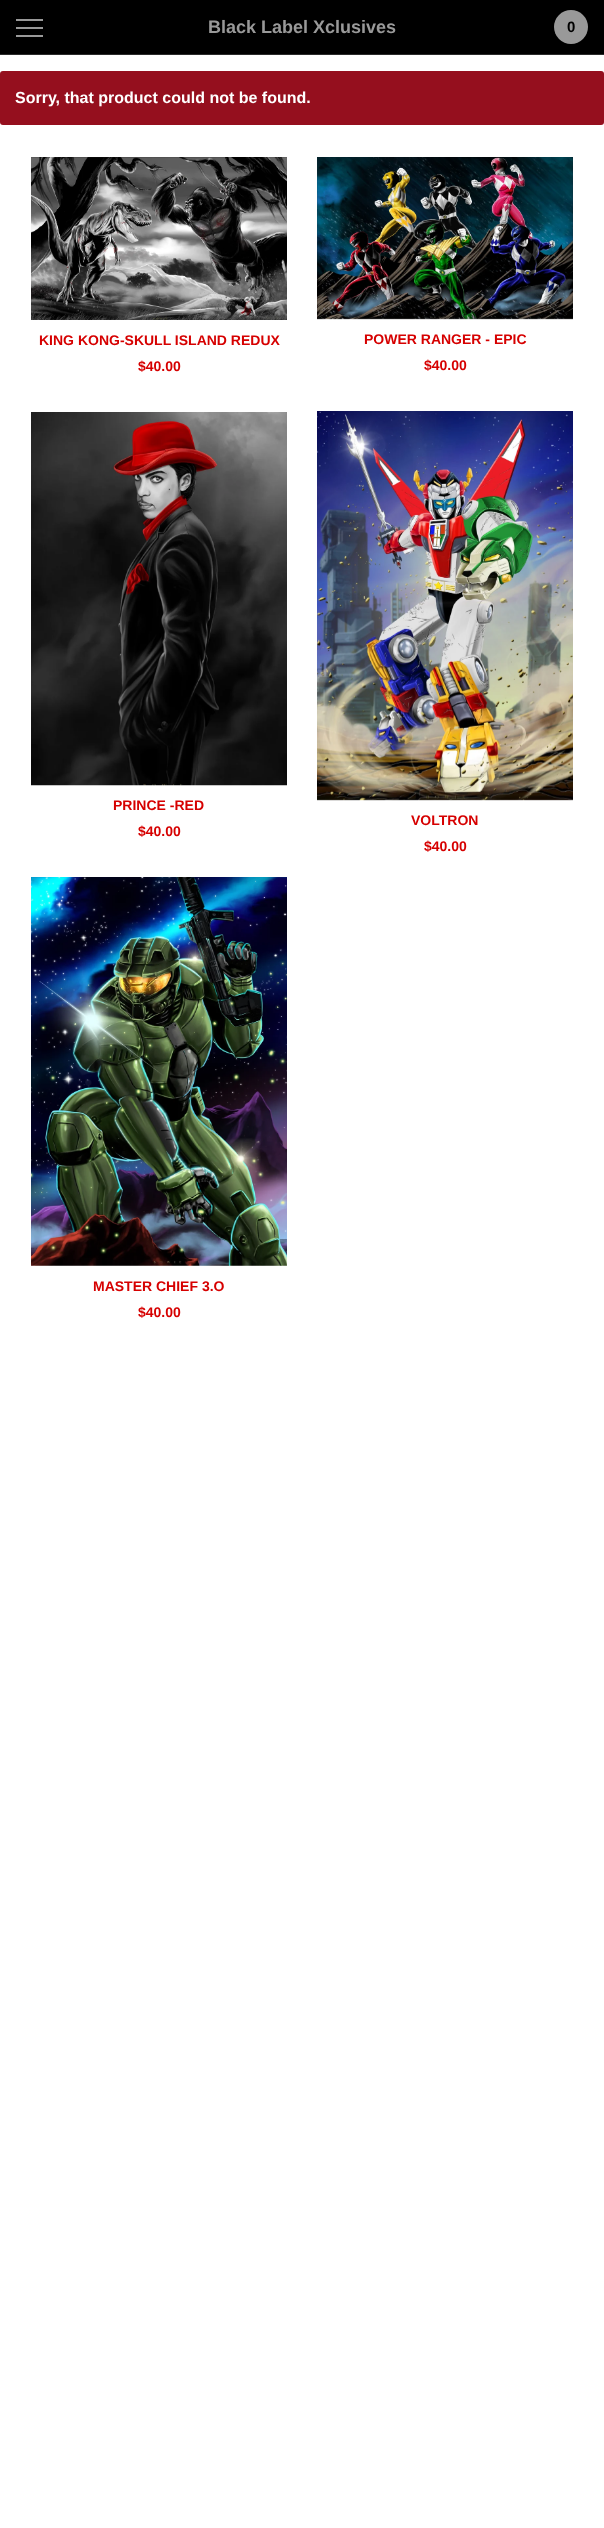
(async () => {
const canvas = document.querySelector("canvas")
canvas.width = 604
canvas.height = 2528
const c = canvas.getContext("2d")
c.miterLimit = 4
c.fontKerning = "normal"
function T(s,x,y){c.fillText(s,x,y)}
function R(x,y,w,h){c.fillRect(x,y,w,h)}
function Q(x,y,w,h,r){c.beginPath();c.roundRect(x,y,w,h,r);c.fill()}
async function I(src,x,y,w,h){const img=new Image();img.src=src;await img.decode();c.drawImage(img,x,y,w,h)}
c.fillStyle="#fff"
R(0,0,604,2528)
c.fillStyle="#000"
R(0,0,604,54)
c.fillStyle="#2b2b2b"
R(0,54,604,1)
c.fillStyle="#999"
R(16,27,27,2)
R(16,19,27,2)
R(16,35,27,2)
c.font="bold 18px Liberation Sans"
T("Black Label Xclusives",208,33)
c.beginPath()
c.arc(571,27,17,0,7)
c.fill()
c.font="bold 15px Liberation Sans"
c.fillStyle="#000"
T("0",567,32)
c.fillStyle="#950f1e"
Q(0,71,604,54,3)
c.font="bold 16px Liberation Sans"
c.fillStyle="#fff"
T("Sorry, that product could not be found.",15,103)
await I("1.png",31,157,256,163)
c.font="bold 14px Liberation Sans"
c.fillStyle="#d60000"
T("KING KONG-SKULL ISLAND REDUX",39,345)
T("$40.00",138,371)
await I("2.png",317,157,256,163)
T("POWER RANGER - EPIC",364,344)
T("$40.00",424,370)
await I("3.png",31,412,256,374)
T("PRINCE -RED",113,810)
T("$40.00",138,836)
await I("4.png",317,411,256,390)
T("VOLTRON",411,825)
T("$40.00",424,851)
await I("5.png",31,877,256,389)
T("MASTER CHIEF 3.O",93,1291)
T("$40.00",138,1317)
})()
